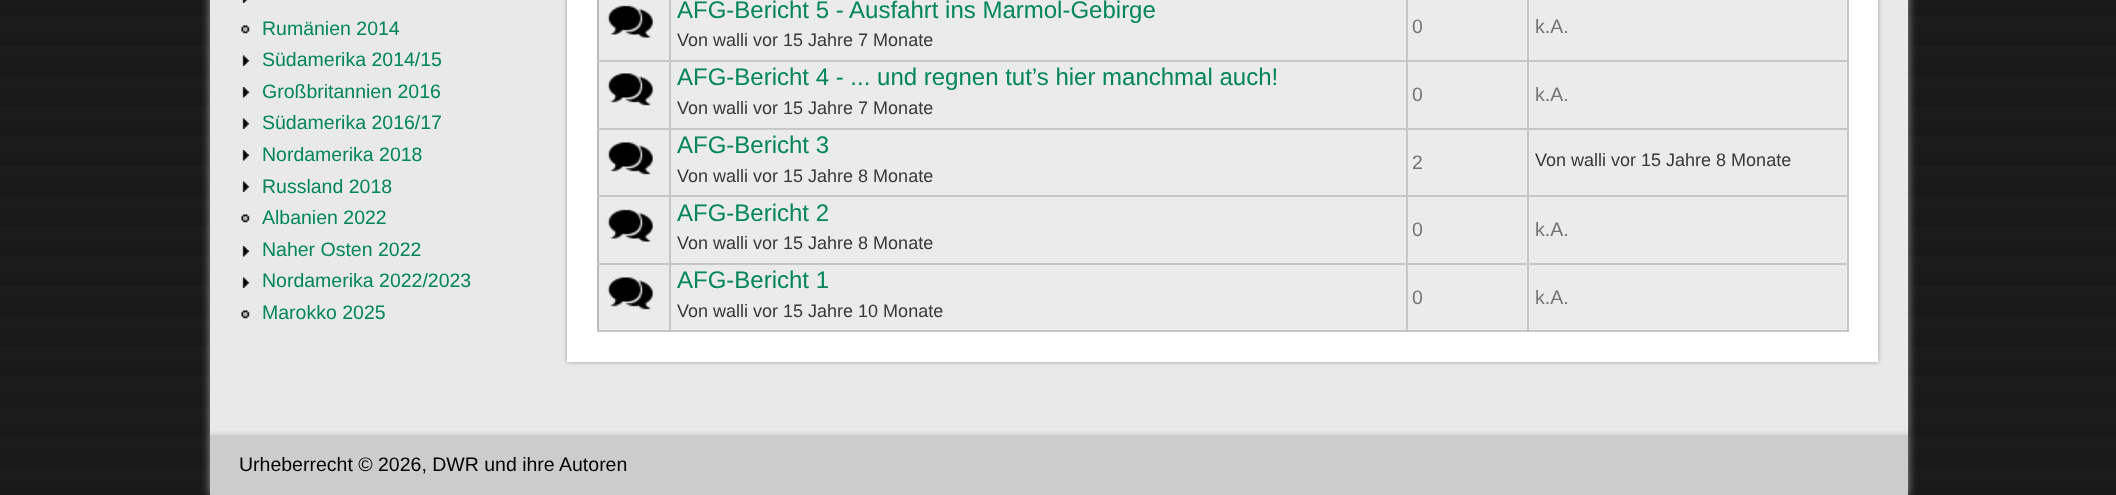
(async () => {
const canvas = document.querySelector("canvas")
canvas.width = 2116
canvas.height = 495
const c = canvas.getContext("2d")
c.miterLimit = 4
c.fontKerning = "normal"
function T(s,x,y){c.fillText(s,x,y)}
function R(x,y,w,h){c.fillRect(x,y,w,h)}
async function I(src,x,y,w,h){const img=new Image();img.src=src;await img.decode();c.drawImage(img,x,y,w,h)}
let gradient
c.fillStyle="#fff"
R(0,0,2116,495)
gradient = c.createLinearGradient(15,-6,15,24)
gradient.addColorStop(.25,"#1b1b1b")
gradient.addColorStop(.25,"#1a1a1a")
gradient.addColorStop(.5,"#1a1a1a")
gradient.addColorStop(.5,"#191919")
gradient.addColorStop(.75,"#191919")
gradient.addColorStop(.75,"#1c1c1c")
gradient.addColorStop(1,"#1c1c1c")
c.fillStyle = gradient
R(0,0,2116,24)
gradient = c.createLinearGradient(15,24,15,54)
gradient.addColorStop(.25,"#1b1b1b")
gradient.addColorStop(.25,"#1a1a1a")
gradient.addColorStop(.5,"#1a1a1a")
gradient.addColorStop(.5,"#191919")
gradient.addColorStop(.75,"#191919")
gradient.addColorStop(.75,"#1c1c1c")
gradient.addColorStop(1,"#1c1c1c")
c.fillStyle = gradient
R(0,24,2116,30)
gradient = c.createLinearGradient(15,54,15,84)
gradient.addColorStop(.25,"#1b1b1b")
gradient.addColorStop(.25,"#1a1a1a")
gradient.addColorStop(.5,"#1a1a1a")
gradient.addColorStop(.5,"#191919")
gradient.addColorStop(.75,"#191919")
gradient.addColorStop(.75,"#1c1c1c")
gradient.addColorStop(1,"#1c1c1c")
c.fillStyle = gradient
R(0,54,2116,30)
gradient = c.createLinearGradient(15,84,15,114)
gradient.addColorStop(.25,"#1b1b1b")
gradient.addColorStop(.25,"#1a1a1a")
gradient.addColorStop(.5,"#1a1a1a")
gradient.addColorStop(.5,"#191919")
gradient.addColorStop(.75,"#191919")
gradient.addColorStop(.75,"#1c1c1c")
gradient.addColorStop(1,"#1c1c1c")
c.fillStyle = gradient
R(0,84,2116,30)
gradient = c.createLinearGradient(15,114,15,144)
gradient.addColorStop(.25,"#1b1b1b")
gradient.addColorStop(.25,"#1a1a1a")
gradient.addColorStop(.5,"#1a1a1a")
gradient.addColorStop(.5,"#191919")
gradient.addColorStop(.75,"#191919")
gradient.addColorStop(.75,"#1c1c1c")
gradient.addColorStop(1,"#1c1c1c")
c.fillStyle = gradient
R(0,114,2116,30)
gradient = c.createLinearGradient(15,144,15,174)
gradient.addColorStop(.25,"#1b1b1b")
gradient.addColorStop(.25,"#1a1a1a")
gradient.addColorStop(.5,"#1a1a1a")
gradient.addColorStop(.5,"#191919")
gradient.addColorStop(.75,"#191919")
gradient.addColorStop(.75,"#1c1c1c")
gradient.addColorStop(1,"#1c1c1c")
c.fillStyle = gradient
R(0,144,2116,30)
gradient = c.createLinearGradient(15,174,15,204)
gradient.addColorStop(.25,"#1b1b1b")
gradient.addColorStop(.25,"#1a1a1a")
gradient.addColorStop(.5,"#1a1a1a")
gradient.addColorStop(.5,"#191919")
gradient.addColorStop(.75,"#191919")
gradient.addColorStop(.75,"#1c1c1c")
gradient.addColorStop(1,"#1c1c1c")
c.fillStyle = gradient
R(0,174,2116,30)
gradient = c.createLinearGradient(15,204,15,234)
gradient.addColorStop(.25,"#1b1b1b")
gradient.addColorStop(.25,"#1a1a1a")
gradient.addColorStop(.5,"#1a1a1a")
gradient.addColorStop(.5,"#191919")
gradient.addColorStop(.75,"#191919")
gradient.addColorStop(.75,"#1c1c1c")
gradient.addColorStop(1,"#1c1c1c")
c.fillStyle = gradient
R(0,204,2116,30)
gradient = c.createLinearGradient(15,234,15,264)
gradient.addColorStop(.25,"#1b1b1b")
gradient.addColorStop(.25,"#1a1a1a")
gradient.addColorStop(.5,"#1a1a1a")
gradient.addColorStop(.5,"#191919")
gradient.addColorStop(.75,"#191919")
gradient.addColorStop(.75,"#1c1c1c")
gradient.addColorStop(1,"#1c1c1c")
c.fillStyle = gradient
R(0,234,2116,30)
gradient = c.createLinearGradient(15,264,15,294)
gradient.addColorStop(.25,"#1b1b1b")
gradient.addColorStop(.25,"#1a1a1a")
gradient.addColorStop(.5,"#1a1a1a")
gradient.addColorStop(.5,"#191919")
gradient.addColorStop(.75,"#191919")
gradient.addColorStop(.75,"#1c1c1c")
gradient.addColorStop(1,"#1c1c1c")
c.fillStyle = gradient
R(0,264,2116,30)
gradient = c.createLinearGradient(15,294,15,324)
gradient.addColorStop(.25,"#1b1b1b")
gradient.addColorStop(.25,"#1a1a1a")
gradient.addColorStop(.5,"#1a1a1a")
gradient.addColorStop(.5,"#191919")
gradient.addColorStop(.75,"#191919")
gradient.addColorStop(.75,"#1c1c1c")
gradient.addColorStop(1,"#1c1c1c")
c.fillStyle = gradient
R(0,294,2116,30)
gradient = c.createLinearGradient(15,324,15,354)
gradient.addColorStop(.25,"#1b1b1b")
gradient.addColorStop(.25,"#1a1a1a")
gradient.addColorStop(.5,"#1a1a1a")
gradient.addColorStop(.5,"#191919")
gradient.addColorStop(.75,"#191919")
gradient.addColorStop(.75,"#1c1c1c")
gradient.addColorStop(1,"#1c1c1c")
c.fillStyle = gradient
R(0,324,2116,30)
gradient = c.createLinearGradient(15,354,15,384)
gradient.addColorStop(.25,"#1b1b1b")
gradient.addColorStop(.25,"#1a1a1a")
gradient.addColorStop(.5,"#1a1a1a")
gradient.addColorStop(.5,"#191919")
gradient.addColorStop(.75,"#191919")
gradient.addColorStop(.75,"#1c1c1c")
gradient.addColorStop(1,"#1c1c1c")
c.fillStyle = gradient
R(0,354,2116,30)
gradient = c.createLinearGradient(15,384,15,414)
gradient.addColorStop(.25,"#1b1b1b")
gradient.addColorStop(.25,"#1a1a1a")
gradient.addColorStop(.5,"#1a1a1a")
gradient.addColorStop(.5,"#191919")
gradient.addColorStop(.75,"#191919")
gradient.addColorStop(.75,"#1c1c1c")
gradient.addColorStop(1,"#1c1c1c")
c.fillStyle = gradient
R(0,384,2116,30)
gradient = c.createLinearGradient(15,414,15,444)
gradient.addColorStop(.25,"#1b1b1b")
gradient.addColorStop(.25,"#1a1a1a")
gradient.addColorStop(.5,"#1a1a1a")
gradient.addColorStop(.5,"#191919")
gradient.addColorStop(.75,"#191919")
gradient.addColorStop(.75,"#1c1c1c")
gradient.addColorStop(1,"#1c1c1c")
c.fillStyle = gradient
R(0,414,2116,30)
gradient = c.createLinearGradient(15,444,15,474)
gradient.addColorStop(.25,"#1b1b1b")
gradient.addColorStop(.25,"#1a1a1a")
gradient.addColorStop(.5,"#1a1a1a")
gradient.addColorStop(.5,"#191919")
gradient.addColorStop(.75,"#191919")
gradient.addColorStop(.75,"#1c1c1c")
gradient.addColorStop(1,"#1c1c1c")
c.fillStyle = gradient
R(0,444,2116,30)
gradient = c.createLinearGradient(15,474,15,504)
gradient.addColorStop(.25,"#1b1b1b")
gradient.addColorStop(.25,"#1a1a1a")
gradient.addColorStop(.5,"#1a1a1a")
gradient.addColorStop(.5,"#191919")
gradient.addColorStop(.75,"#191919")
gradient.addColorStop(.75,"#1c1c1c")
gradient.addColorStop(1,"#1c1c1c")
c.fillStyle = gradient
R(0,474,2116,21)
c.fillStyle="#999"
c.filter="blur(4.5px)"
c.beginPath()
c.rect(210,-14,1698,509)
c.fill()
c.filter="none"
c.fillStyle="#e9e9e9"
R(210,0,1698,435)
await I("1.png",242,0,6,3)
await I("2.png",241,25,9,9)
c.font="19.5px Liberation Sans"
c.fillStyle="#018659"
T("Rumänien 2014",262,35)
await I("3.png",242,55,8,11)
T("Südamerika 2014/15",262,66)
await I("4.png",242,87,8,11)
T("Großbritannien 2016",262,98)
await I("3.png",242,118,8,11)
T("Südamerika 2016/17",262,129)
await I("4.png",242,150,8,11)
T("Nordamerika 2018",262,161)
await I("3.png",242,181,8,11)
T("Russland 2018",262,193)
await I("2.png",241,214,9,9)
T("Albanien 2022",262,224)
await I("4.png",242,246,8,11)
T("Naher Osten 2022",262,256)
await I("3.png",242,277,8,11)
T("Nordamerika 2022/2023",262,287)
await I("2.png",241,310,9,9)
T("Marokko 2025",262,319)
c.fillStyle="#999"
c.filter="blur(2px)"
c.beginPath()
c.rect(567,-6,1311,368)
c.fill()
c.filter="none"
c.fillStyle="#fff"
R(567,0,1311,362)
c.fillStyle="#bbb"
R(597,0,2,332)
c.fillStyle="#ebebeb"
R(599,0,70,60)
c.fillStyle="#c8c7c7"
R(1847,0,2,332)
R(1527,330,321,2)
R(1527,263,2,69)
R(1527,263,321,2)
R(1527,195,2,69)
R(1527,195,321,2)
R(1527,128,2,69)
R(1527,128,321,2)
R(1527,60,2,69)
R(1527,60,321,2)
R(1527,0,2,62)
R(1406,330,123,2)
R(1406,263,2,69)
R(1406,263,123,2)
R(1406,195,2,69)
R(1406,195,123,2)
R(1406,128,2,69)
R(1406,128,123,2)
R(1406,60,2,69)
R(1406,60,123,2)
R(1406,0,2,62)
R(669,330,738,2)
R(669,263,2,69)
R(669,263,738,2)
R(669,195,2,69)
R(669,195,738,2)
R(669,128,2,69)
R(669,128,738,2)
R(669,60,2,69)
R(669,60,738,2)
R(669,0,2,62)
R(597,60,74,2)
await I("5.png",607,5,47,33)
c.fillStyle="#ebebeb"
R(671,0,735,60)
c.font="24px Liberation Sans"
c.fillStyle="#018659"
T("AFG-Bericht 5 - Ausfahrt ins Marmol-Gebirge",677,18)
c.font="18px Liberation Sans"
c.fillStyle="#383838"
T("Von walli vor 15 Jahre 7 Monate",677,46)
c.fillStyle="#ebebeb"
R(1408,0,119,60)
c.font="19.5px Liberation Sans"
c.fillStyle="#747474"
T("0",1412,33)
c.fillStyle="#ebebeb"
R(1529,0,318,60)
c.fillStyle="#747474"
T("k.A.",1535,33)
c.fillStyle="#ebebeb"
R(599,62,70,66)
c.fillStyle="#c8c7c7"
R(597,128,74,2)
await I("6.png",607,73,47,33)
c.fillStyle="#ebebeb"
R(671,62,735,66)
c.font="24px Liberation Sans"
c.fillStyle="#018659"
T("AFG-Bericht 4 - ... und regnen tut’s hier manchmal auch!",677,85)
c.font="18px Liberation Sans"
c.fillStyle="#383838"
T("Von walli vor 15 Jahre 7 Monate",677,114)
c.fillStyle="#ebebeb"
R(1408,62,119,66)
c.font="19.5px Liberation Sans"
c.fillStyle="#747474"
T("0",1412,101)
c.fillStyle="#ebebeb"
R(1529,62,318,66)
c.fillStyle="#747474"
T("k.A.",1535,101)
c.fillStyle="#ebebeb"
R(599,130,70,65)
c.fillStyle="#c8c7c7"
R(597,195,74,2)
await I("6.png",607,142,47,33)
c.fillStyle="#ebebeb"
R(671,130,735,65)
c.font="24px Liberation Sans"
c.fillStyle="#018659"
T("AFG-Bericht 3",677,153)
c.font="18px Liberation Sans"
c.fillStyle="#383838"
T("Von walli vor 15 Jahre 8 Monate",677,182)
c.fillStyle="#ebebeb"
R(1408,130,119,65)
c.font="19.5px Liberation Sans"
c.fillStyle="#747474"
T("2",1412,169)
c.fillStyle="#ebebeb"
R(1529,130,318,65)
c.font="18px Liberation Sans"
c.fillStyle="#383838"
T("Von walli vor 15 Jahre 8 Monate",1535,166)
c.fillStyle="#ebebeb"
R(599,197,70,66)
c.fillStyle="#c8c7c7"
R(597,263,74,2)
await I("5.png",607,209,47,33)
c.fillStyle="#ebebeb"
R(671,197,735,66)
c.font="24px Liberation Sans"
c.fillStyle="#018659"
T("AFG-Bericht 2",677,221)
c.font="18px Liberation Sans"
c.fillStyle="#383838"
T("Von walli vor 15 Jahre 8 Monate",677,249)
c.fillStyle="#ebebeb"
R(1408,197,119,66)
c.font="19.5px Liberation Sans"
c.fillStyle="#747474"
T("0",1412,236)
c.fillStyle="#ebebeb"
R(1529,197,318,66)
c.fillStyle="#747474"
T("k.A.",1535,236)
c.fillStyle="#ebebeb"
R(599,265,70,65)
c.fillStyle="#c8c7c7"
R(597,330,74,2)
await I("6.png",607,277,47,33)
c.fillStyle="#ebebeb"
R(671,265,735,65)
c.font="24px Liberation Sans"
c.fillStyle="#018659"
T("AFG-Bericht 1",677,288)
c.font="18px Liberation Sans"
c.fillStyle="#383838"
T("Von walli vor 15 Jahre 10 Monate",677,317)
c.fillStyle="#ebebeb"
R(1408,265,119,65)
c.font="19.5px Liberation Sans"
c.fillStyle="#747474"
T("0",1412,304)
c.fillStyle="#ebebeb"
R(1529,265,318,65)
c.fillStyle="#747474"
T("k.A.",1535,304)
c.save()
c.beginPath()
c.rect(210,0,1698,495)
c.clip()
c.fillStyle="#ccc"
c.filter="blur(2px)"
c.beginPath()
c.rect(210,434,1698,60)
c.fill()
c.filter="none"
c.restore()
c.fillStyle="#ccc"
R(210,435,1698,60)
c.fillStyle="#000"
T("Urheberrecht © 2026, DWR und ihre Autoren",239,471)
})()
